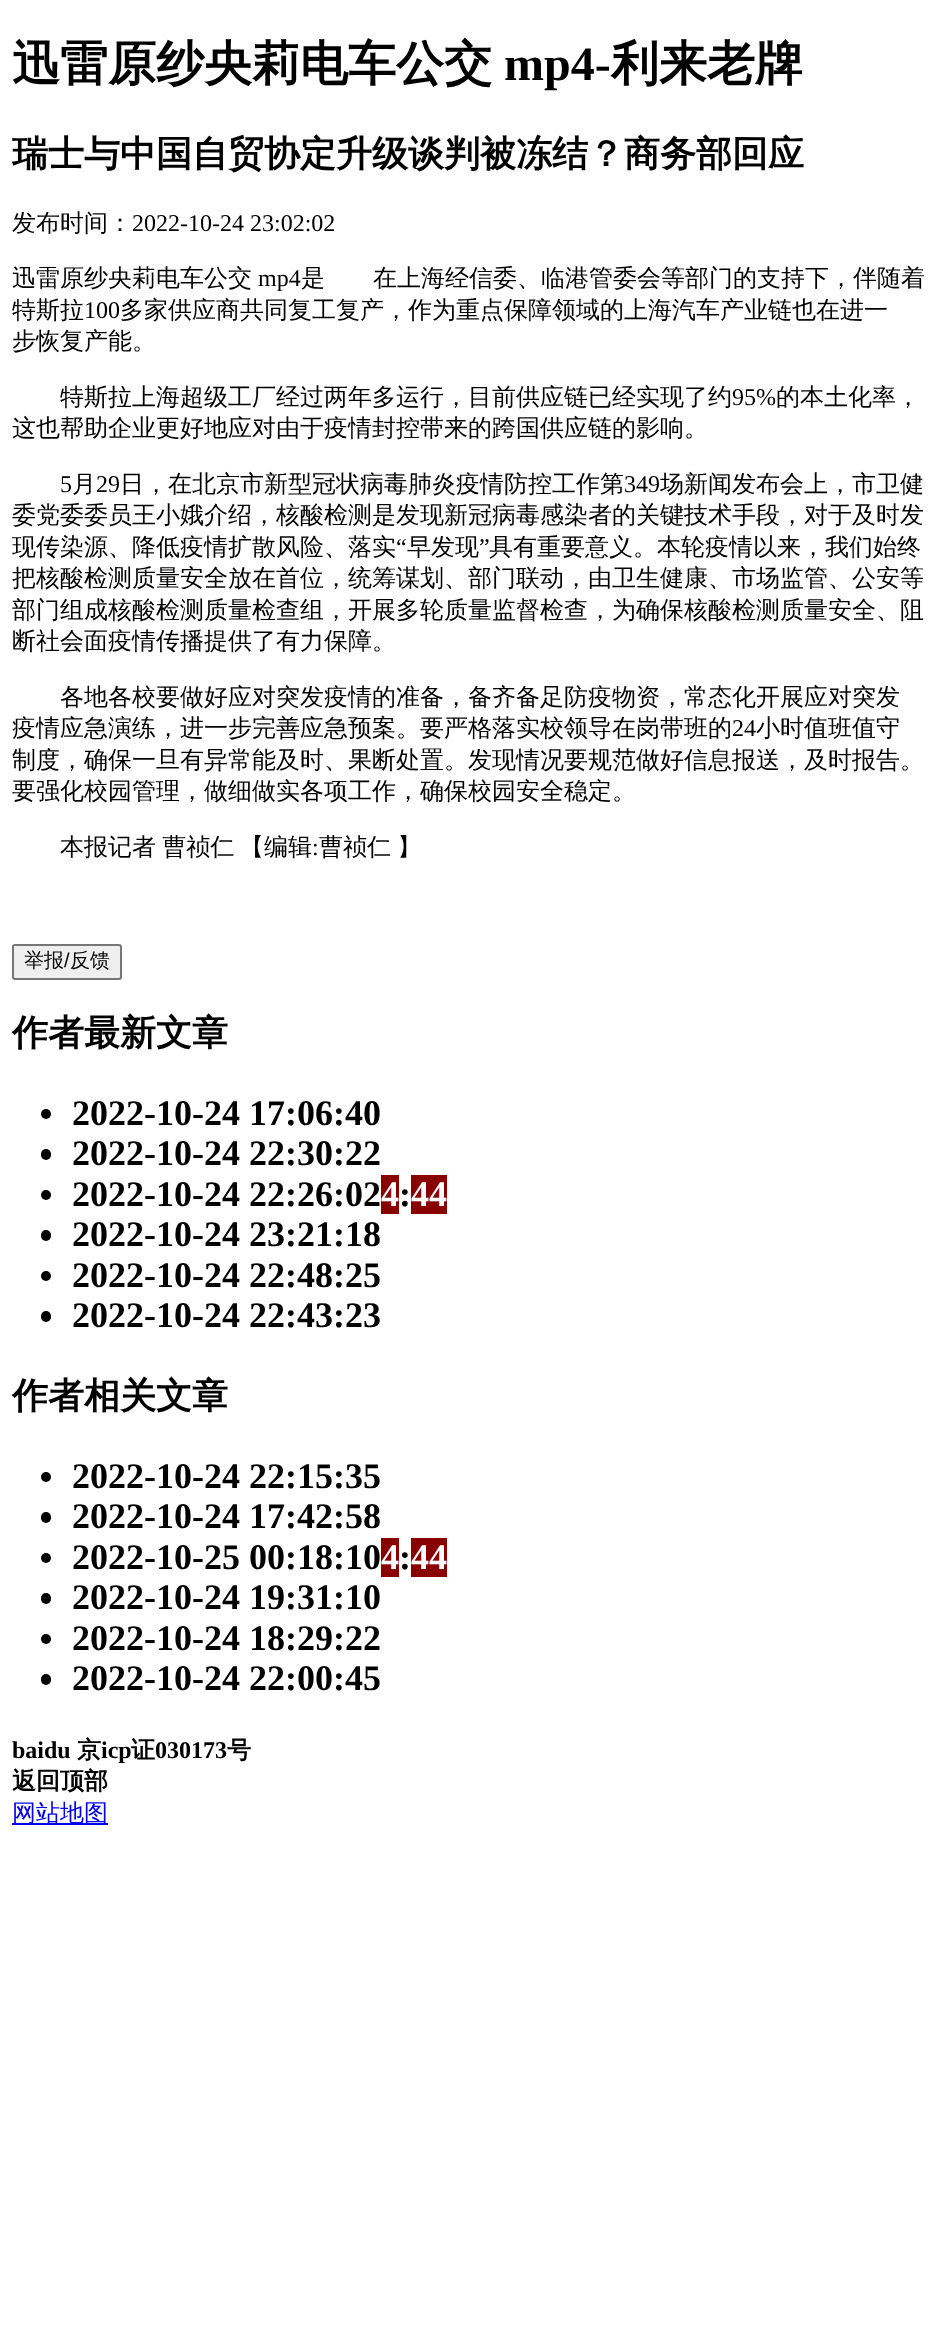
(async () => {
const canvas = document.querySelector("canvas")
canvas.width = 941
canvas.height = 2348
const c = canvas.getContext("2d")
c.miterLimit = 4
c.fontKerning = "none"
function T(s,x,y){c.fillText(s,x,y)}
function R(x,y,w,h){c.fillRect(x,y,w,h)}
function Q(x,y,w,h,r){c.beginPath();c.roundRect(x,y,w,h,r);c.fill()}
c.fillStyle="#fff"
R(0,0,941,2348)
c.font="bold 48px WenQuanYi Zen Hei"
c.fillStyle="#000"
T("迅雷原纱央莉电车公交",12,80)
c.font="bold 48px Liberation Serif"
T("mp4-",504,80)
c.font="bold 48px WenQuanYi Zen Hei"
T("利来老牌",611,80)
c.font="bold 36px WenQuanYi Zen Hei"
T("瑞士与中国自贸协定升级谈判被冻结？商务部回应",12,166)
c.font="500 24px WenQuanYi Zen Hei"
T("发布时间：",12,231)
c.font="24px Liberation Serif"
T("2022-10-24 23:02:02",132,231)
c.font="500 24px WenQuanYi Zen Hei"
T("迅雷原纱央莉电车公交",12,286)
c.font="24px Liberation Serif"
T("mp4",258,286)
c.font="500 24px WenQuanYi Zen Hei"
T("是　　在上海经信委、临港管委会等部门的支持下，伴随着",301,286)
T("特斯拉",12,318)
c.font="24px Liberation Serif"
T("100",84,318)
c.font="500 24px WenQuanYi Zen Hei"
T("多家供应商共同复工复产，作为重点保障领域的上海汽车产业链也在进一",120,318)
T("步恢复产能。",12,349)
T("特斯拉上海超级工厂经过两年多运行，目前供应链已经实现了约",60,405)
c.font="24px Liberation Serif"
T("95%",732,405)
c.font="500 24px WenQuanYi Zen Hei"
T("的本土化率，",776,405)
T("这也帮助企业更好地应对由于疫情封控带来的跨国供应链的影响。",12,436)
c.font="24px Liberation Serif"
T("5",60,492)
c.font="500 24px WenQuanYi Zen Hei"
T("月",72,492)
c.font="24px Liberation Serif"
T("29",96,492)
c.font="500 24px WenQuanYi Zen Hei"
T("日，在北京市新型冠状病毒肺炎疫情防控工作第",120,492)
c.font="24px Liberation Serif"
T("349",624,492)
c.font="500 24px WenQuanYi Zen Hei"
T("场新闻发布会上，市卫健",660,492)
T("委党委委员王小娥介绍，核酸检测是发现新冠病毒感染者的关键技术手段，对于及时发",12,523)
T("现传染源、降低疫情扩散风险、落实",12,555)
c.font="24px Liberation Serif"
T("“",396,555)
c.font="500 24px WenQuanYi Zen Hei"
T("早发现",407,555)
c.font="24px Liberation Serif"
T("”",479,555)
c.font="500 24px WenQuanYi Zen Hei"
T("具有重要意义。本轮疫情以来，我们始终",489,555)
T("把核酸检测质量安全放在首位，统筹谋划、部门联动，由卫生健康、市场监管、公安等",12,586)
T("部门组成核酸检测质量检查组，开展多轮质量监督检查，为确保核酸检测质量安全、阻",12,618)
T("断社会面疫情传播提供了有力保障。",12,649)
T("各地各校要做好应对突发疫情的准备，备齐备足防疫物资，常态化开展应对突发",60,705)
T("疫情应急演练，进一步完善应急预案。要严格落实校领导在岗带班的",12,736)
c.font="24px Liberation Serif"
T("24",732,736)
c.font="500 24px WenQuanYi Zen Hei"
T("小时值班值守",756,736)
T("制度，确保一旦有异常能及时、果断处置。发现情况要规范做好信息报送，及时报告。",12,768)
T("要强化校园管理，做细做实各项工作，确保校园安全稳定。",12,799)
c.wordSpacing="-1px"
T("本报记者 曹祯仁",60,855)
c.wordSpacing="0px"
T("【编辑",240,855)
c.font="24px Liberation Serif"
T(":",312,855)
c.wordSpacing="-1px"
c.font="500 24px WenQuanYi Zen Hei"
T("曹祯仁 】",319,855)
c.fillStyle="#efefef"
c.beginPath()
c.roundRect(13,945,108,34,2)
c.fill()
c.strokeStyle="#767676"
c.lineWidth=2
c.stroke()
c.wordSpacing="0px"
c.font="500 20px WenQuanYi Zen Hei"
c.fillStyle="#000"
T("举报",24,967)
c.font="20px Liberation Sans"
T("/",64,967)
c.font="500 20px WenQuanYi Zen Hei"
T("反馈",70,967)
c.font="bold 36px WenQuanYi Zen Hei"
T("作者最新文章",12,1045)
c.beginPath()
c.arc(46,1114,5,0,7)
c.fill()
c.font="bold 36px Liberation Serif"
T("2022-10-24 17:06:40",72,1125)
Q(41,1149,10,11,5)
T("2022-10-24 22:30:22",72,1165)
c.beginPath()
c.arc(46,1195,5,0,7)
c.fill()
T("2022-10-24 22:26:02",72,1206)
c.fillStyle="#800"
R(381,1175,18,39)
c.fillStyle="#fff"
T("4",381,1206)
c.fillStyle="#000"
T(":",399,1206)
c.fillStyle="#800"
R(411,1175,36,39)
c.fillStyle="#fff"
T("44",411,1206)
c.fillStyle="#000"
Q(41,1230,10,11,5)
T("2022-10-24 23:21:18",72,1246)
c.beginPath()
c.arc(46,1276,5,0,7)
c.fill()
T("2022-10-24 22:48:25",72,1287)
Q(41,1311,10,11,5)
T("2022-10-24 22:43:23",72,1327)
c.font="bold 36px WenQuanYi Zen Hei"
T("作者相关文章",12,1408)
c.beginPath()
c.arc(46,1477,5,0,7)
c.fill()
c.font="bold 36px Liberation Serif"
T("2022-10-24 22:15:35",72,1488)
Q(41,1512,10,11,5)
T("2022-10-24 17:42:58",72,1528)
c.beginPath()
c.arc(46,1558,5,0,7)
c.fill()
T("2022-10-25 00:18:10",72,1569)
c.fillStyle="#800"
R(381,1538,18,39)
c.fillStyle="#fff"
T("4",381,1569)
c.fillStyle="#000"
T(":",399,1569)
c.fillStyle="#800"
R(411,1538,36,39)
c.fillStyle="#fff"
T("44",411,1569)
c.fillStyle="#000"
Q(41,1593,10,11,5)
T("2022-10-24 19:31:10",72,1609)
c.beginPath()
c.arc(46,1639,5,0,7)
c.fill()
T("2022-10-24 18:29:22",72,1650)
Q(41,1674,10,11,5)
T("2022-10-24 22:00:45",72,1690)
c.font="bold 24px Liberation Serif"
T("baidu",12,1758)
c.font="bold 24px WenQuanYi Zen Hei"
T("京",77,1758)
c.font="bold 24px Liberation Serif"
T("icp",101,1758)
c.font="bold 24px WenQuanYi Zen Hei"
T("证",131,1758)
c.font="bold 24px Liberation Serif"
T("030173",155,1758)
c.font="bold 24px WenQuanYi Zen Hei"
T("号",227,1758)
T("返回顶部",12,1789)
c.fillStyle="#00e"
R(12,1823,96,2)
c.font="500 24px WenQuanYi Zen Hei"
T("网站地图",12,1821)
})()
